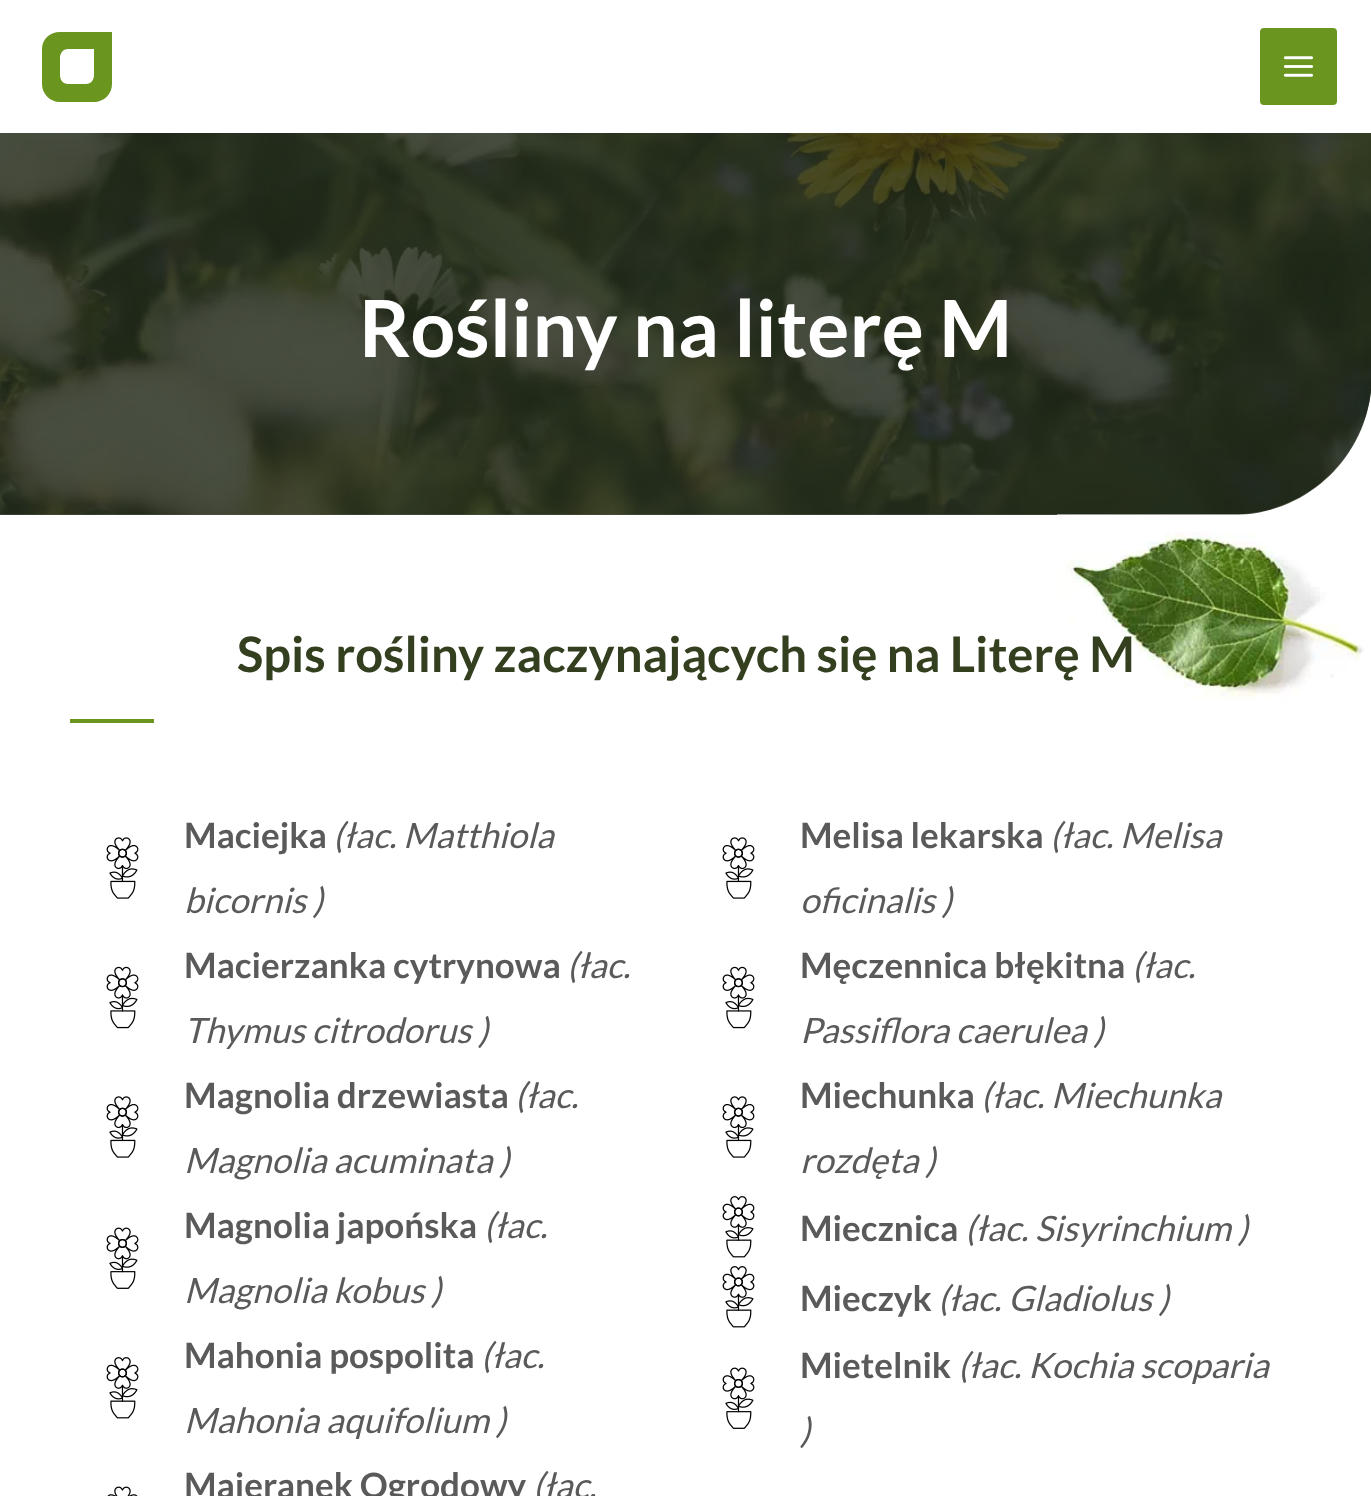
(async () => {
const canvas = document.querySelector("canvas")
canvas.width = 1371
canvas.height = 1496
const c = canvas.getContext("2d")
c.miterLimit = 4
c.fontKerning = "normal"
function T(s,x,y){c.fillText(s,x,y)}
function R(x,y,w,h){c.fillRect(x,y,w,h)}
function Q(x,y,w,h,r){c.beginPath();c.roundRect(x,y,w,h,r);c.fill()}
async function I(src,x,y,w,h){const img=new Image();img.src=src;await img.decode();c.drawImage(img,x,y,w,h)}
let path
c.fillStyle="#fff"
R(0,0,1371,1496)
await I("2.png",0,133,1371,382)
c.fillStyle="#202714cc"
path = new Path2D("M0 0h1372v375c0 77.5-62.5 140-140 140h-1232z")
c.fill(path)
c.fillStyle="#fff"
R(0,0,1371,133)
c.fillStyle="#6a961f"
path = new Path2D("M112 32v52c0 10-8 18-18 18h-34c-10 0-18-8-18-18v-35c0-10 8-17 18-17zm-18 17h-26c-5 0-8 4-8 9v17c0 5 3 9 8 9h18c5 0 8-4 8-9z")
c.fill(path,"evenodd")
Q(1260,28,77,77,4)
await I("1.png",1283,56,31,21)
c.font="bold 78.75px Lato"
c.fillStyle="#fff"
T("Rośliny na literę M",359,357)
await I("3.png",1057,514,308,187)
c.font="bold 49px Lato"
c.fillStyle="#333f1f"
T("Spis rośliny zaczynających się na Literę M",237,672)
c.fillStyle="#6a961f"
R(70,719,84,4)
await I("4.png",106,837,33,62)
c.font="bold 35px Lato"
c.fillStyle="#5a5a5a"
T("Maciejka",184,848)
c.font="italic 35px Lato"
T("(łac. Matthiola",333,848)
T("bicornis )",184,913)
await I("5.png",106,966,33,63)
c.font="bold 35px Lato"
T("Macierzanka cytrynowa",184,978)
c.font="italic 35px Lato"
T("(łac.",567,978)
T("Thymus citrodorus )",184,1043)
await I("4.png",106,1096,33,62)
c.font="bold 35px Lato"
T("Magnolia drzewiasta",184,1108)
c.font="italic 35px Lato"
T("(łac.",515,1108)
T("Magnolia acuminata )",184,1173)
await I("6.png",106,1227,33,62)
c.font="bold 35px Lato"
T("Magnolia japońska",184,1238)
c.font="italic 35px Lato"
T("(łac.",484,1238)
T("Magnolia kobus )",184,1303)
await I("7.png",106,1357,33,62)
c.font="bold 35px Lato"
T("Mahonia pospolita",184,1368)
c.font="italic 35px Lato"
T("(łac.",481,1368)
T("Mahonia aquifolium )",184,1433)
await I("8.png",107,1486,31,10)
c.font="bold 35px Lato"
T("Majeranek Ogrodowy",184,1498)
c.font="italic 35px Lato"
T("(łac.",533,1498)
await I("4.png",722,837,33,62)
c.font="bold 35px Lato"
T("Melisa lekarska",800,848)
c.font="italic 35px Lato"
T("(łac. Melisa",1050,848)
T("oficinalis )",800,913)
await I("5.png",722,966,33,63)
c.font="bold 35px Lato"
T("Męczennica błękitna",800,978)
c.font="italic 35px Lato"
T("(łac.",1132,978)
T("Passiflora caerulea )",800,1043)
await I("4.png",722,1096,33,62)
c.font="bold 35px Lato"
T("Miechunka",800,1108)
c.font="italic 35px Lato"
T("(łac. Miechunka",981,1108)
T("rozdęta )",800,1173)
await I("7.png",722,1196,33,62)
c.font="bold 35px Lato"
T("Miecznica",800,1241)
c.font="italic 35px Lato"
T("(łac. Sisyrinchium )",965,1241)
await I("7.png",722,1266,33,62)
c.font="bold 35px Lato"
T("Mieczyk",800,1311)
c.font="italic 35px Lato"
T("(łac. Gladiolus )",938,1311)
await I("6.png",722,1367,33,62)
c.font="bold 35px Lato"
T("Mietelnik",800,1378)
c.font="italic 35px Lato"
T("(łac. Kochia scoparia",958,1378)
T(")",800,1443)
})()
